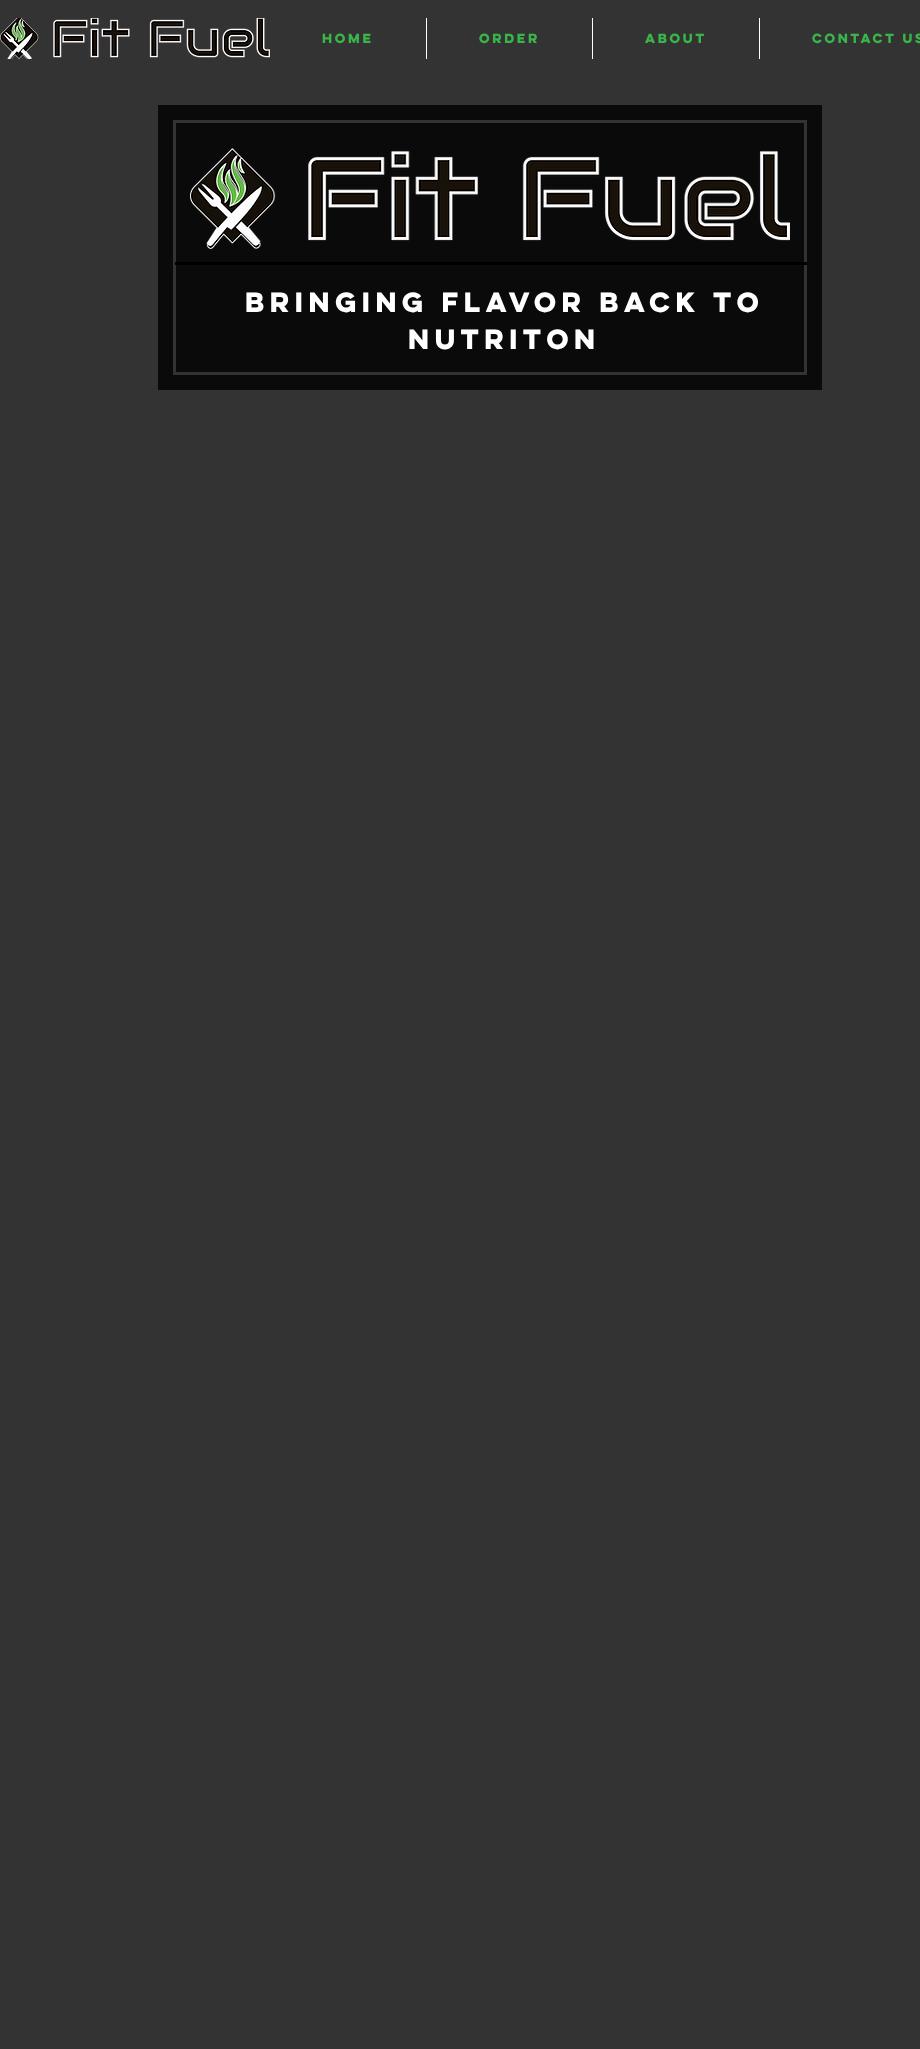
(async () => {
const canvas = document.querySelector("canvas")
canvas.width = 920
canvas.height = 2049
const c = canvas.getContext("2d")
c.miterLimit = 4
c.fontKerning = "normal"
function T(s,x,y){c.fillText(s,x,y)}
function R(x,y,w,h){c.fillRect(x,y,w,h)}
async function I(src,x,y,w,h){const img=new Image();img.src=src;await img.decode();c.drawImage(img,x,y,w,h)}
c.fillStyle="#333"
R(0,0,920,2049)
await I("1.png",0,18,270,41)
c.font="bold 12px 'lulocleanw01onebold'"
c.fillStyle="#39b54a"
T("Home",322,43)
c.fillStyle="#fff"
R(426,18,1,41)
c.fillStyle="#39b54a"
T("Order",479,43)
c.fillStyle="#fff"
R(592,18,1,41)
c.fillStyle="#39b54a"
T("About",645,43)
c.fillStyle="#fff"
R(759,18,1,41)
c.fillStyle="#39b54a"
T("Contact us",812,43)
c.fillStyle="#0a0a0a"
R(158,105,664,285)
c.strokeStyle="#333"
c.lineWidth=3
c.strokeRect(174.5,121.5,631,252)
await I("2.png",190,148,600,101)
c.fillStyle="#000"
R(175,262,632,3)
c.font="bold 25px 'lulocleanw01onebold'"
c.fillStyle="#fff"
T("Bringing Flavor Back to",245,312)
T("Nutriton",408,349)
})()
